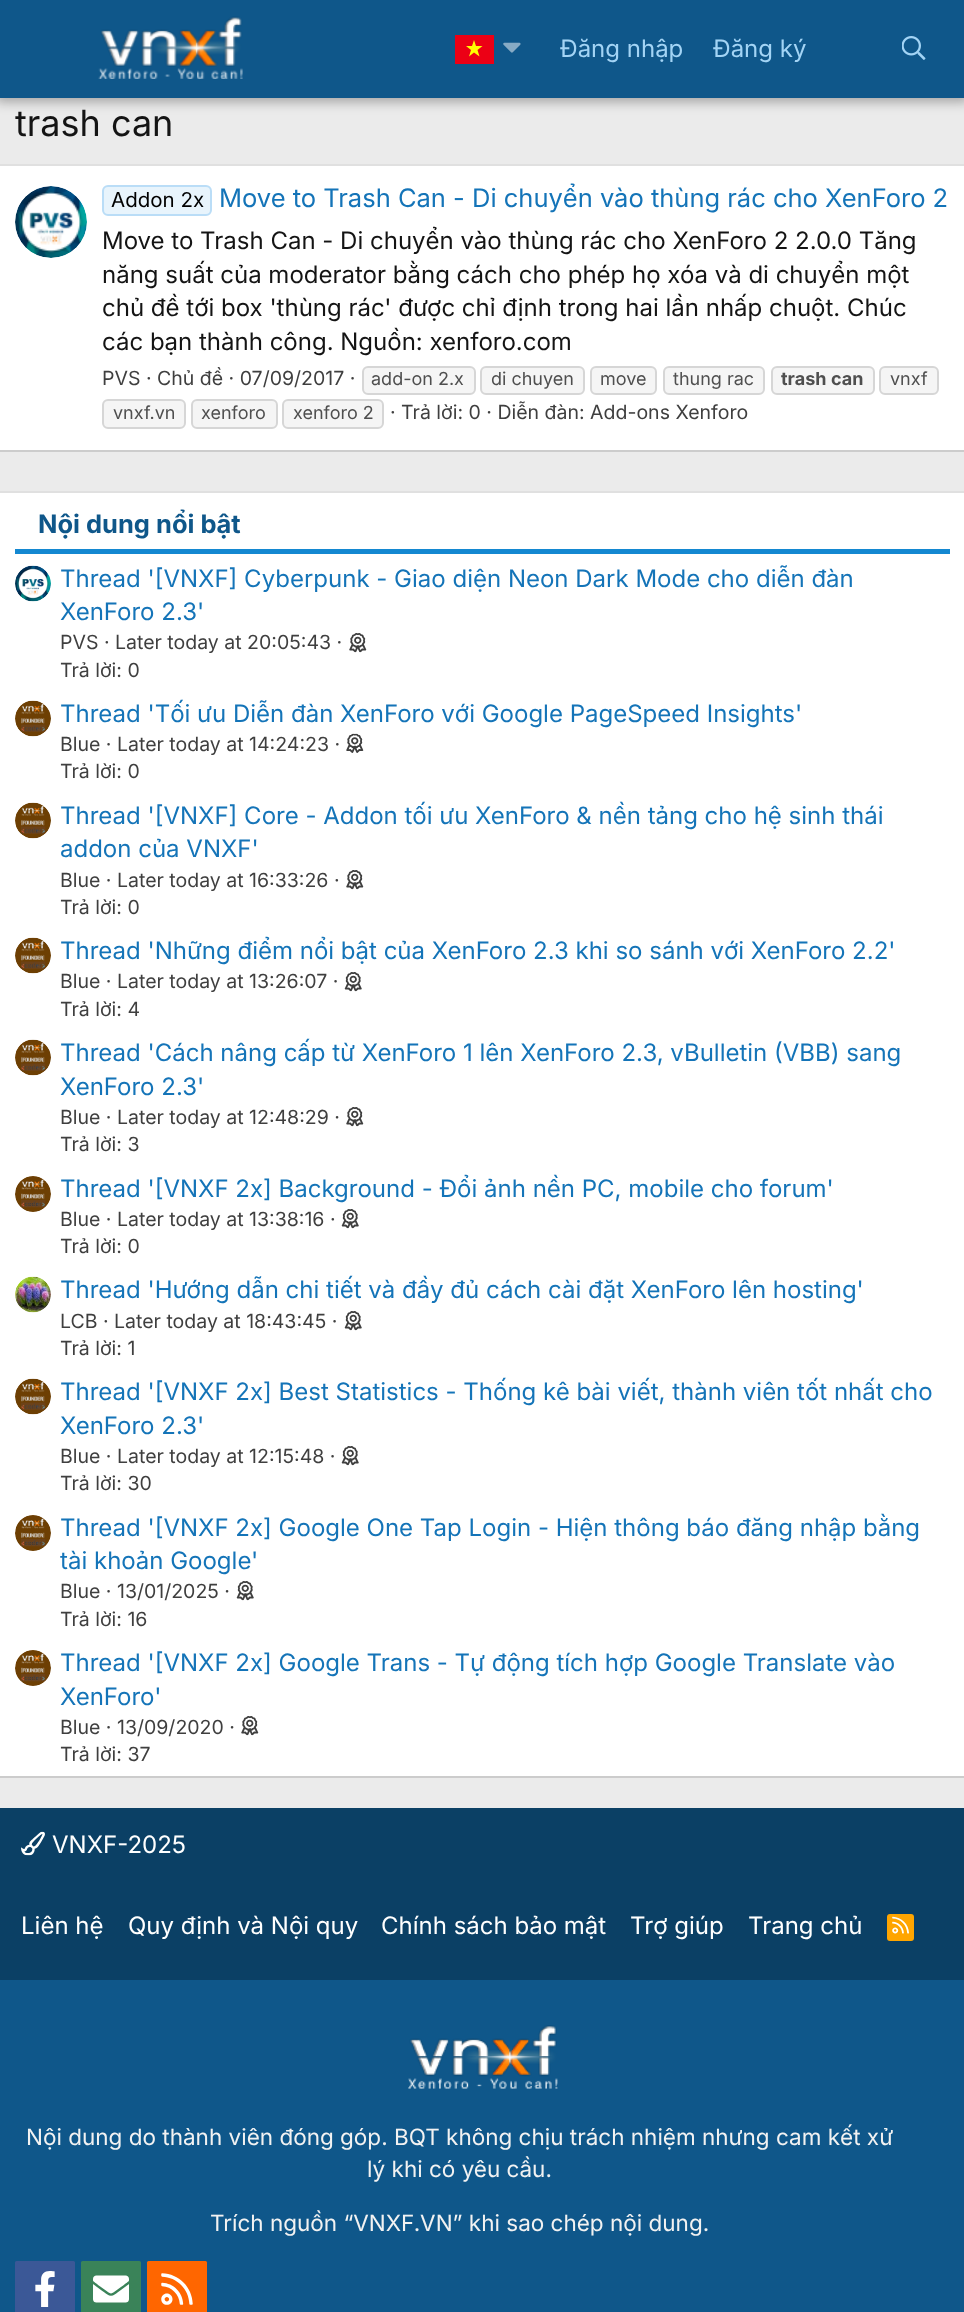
(async () => {
const canvas = document.querySelector("canvas")
canvas.width = 964
canvas.height = 2312
const c = canvas.getContext("2d")
c.miterLimit = 4
c.fontKerning = "normal"
function T(s,x,y){c.fillText(s,x,y)}
function R(x,y,w,h){c.fillRect(x,y,w,h)}
function Q(x,y,w,h,r){c.beginPath();c.roundRect(x,y,w,h,r);c.fill()}
async function I(src,x,y,w,h){const img=new Image();img.src=src;await img.decode();c.drawImage(img,x,y,w,h)}
let path
c.fillStyle="#ebebeb"
R(0,0,964,2312)
c.fillStyle="#0000004d"
c.filter="blur(6px)"
c.beginPath()
c.rect(-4,-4,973,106)
c.fill()
c.filter="none"
c.fillStyle="#0f578a"
R(0,0,964,98)
await I("1.png",98,16,145,63)
c.fillStyle="#ec0015"
R(455,35,39,29)
c.fillStyle="#ff0"
path = new Path2D("M479.5 56.5l-5.5-4l-5 4l2-6.5l-5-4h6l2-6l2 6h6.5l-5 4z")
c.fill(path,"evenodd")
await I("2.png",503,42,18,11)
c.font="24px Inter"
c.fillStyle="#a3d4f5"
T("Đăng nhập",560,57)
T("Đăng ký",713,57)
await I("3.png",902,36,24,24)
c.font="36px Inter"
c.fillStyle="#141414"
T("trash can",15,136)
c.fillStyle="#fff"
R(0,166,964,284)
c.fillStyle="#e0e0e0"
R(0,164,964,2)
c.fillStyle="#ccc"
R(0,450,964,2)
await I("4.png",15,186,72,72)
c.fillStyle="#e8f4fc"
c.beginPath()
c.roundRect(103,186,108,29,5)
c.fill()
c.strokeStyle="#baddf7"
c.lineWidth=2
c.stroke()
c.font="20.5px Inter"
c.fillStyle="#000"
T("Addon 2x",111,207)
c.font="25.5px Inter"
c.fillStyle="#1474b8"
T("Move to Trash Can - Di chuyển vào thùng rác cho XenForo 2",219,207)
c.font="24px Inter"
c.fillStyle="#141414"
T("Move to Trash Can - Di chuyển vào thùng rác cho XenForo 2 2.0.0 Tăng",102,249)
T("năng suất của moderator bằng cách cho phép họ xóa và di chuyển một",102,283)
T("chủ đề tới box 'thùng rác' được chỉ định trong hai lần nhấp chuột. Chúc",102,316)
T("các bạn thành công. Nguồn: xenforo.com",102,350)
c.font="19.5px Inter"
c.fillStyle="#3f3f3f"
T("PVS · Chủ đề · 07/09/2017 ·",102,385)
c.fillStyle="#f5f5f5"
c.beginPath()
c.roundRect(363,367,112,27,5)
c.fill()
c.strokeStyle="#d6d6d6"
c.stroke()
c.font="18px Inter"
c.fillStyle="#4f4f4f"
T("add-on 2.x",371,385)
c.fillStyle="#f5f5f5"
c.beginPath()
c.roundRect(481,367,103,27,5)
c.fill()
c.stroke()
c.fillStyle="#4f4f4f"
T("di chuyen",491,385)
c.fillStyle="#f5f5f5"
c.beginPath()
c.roundRect(591,367,65,27,5)
c.fill()
c.stroke()
c.fillStyle="#4f4f4f"
T("move",600,385)
c.fillStyle="#f5f5f5"
c.beginPath()
c.roundRect(664,367,100,27,5)
c.fill()
c.stroke()
c.fillStyle="#4f4f4f"
T("thung rac",673,385)
c.fillStyle="#f5f5f5"
c.beginPath()
c.roundRect(772,367,102,27,5)
c.fill()
c.stroke()
c.font="bold 18px Inter"
c.fillStyle="#4f4f4f"
T("trash",781,385)
T("can",831,385)
c.fillStyle="#f5f5f5"
c.beginPath()
c.roundRect(880,367,58,27,5)
c.fill()
c.stroke()
c.font="18px Inter"
c.fillStyle="#4f4f4f"
T("vnxf",890,385)
c.fillStyle="#f5f5f5"
c.beginPath()
c.roundRect(103,400,82,28,5)
c.fill()
c.stroke()
c.fillStyle="#4f4f4f"
T("vnxf.vn",113,419)
c.fillStyle="#f5f5f5"
c.beginPath()
c.roundRect(192,400,85,28,5)
c.fill()
c.stroke()
c.fillStyle="#4f4f4f"
T("xenforo",201,419)
c.fillStyle="#f5f5f5"
c.beginPath()
c.roundRect(283,400,100,28,5)
c.fill()
c.stroke()
c.fillStyle="#4f4f4f"
T("xenforo 2",293,419)
c.font="19.5px Inter"
c.fillStyle="#3f3f3f"
T("· Trả lời: 0 · Diễn đàn: Add-ons Xenforo",390,419)
c.fillStyle="#fff"
R(0,493,964,1283)
c.fillStyle="#e0e0e0"
R(0,491,964,2)
c.fillStyle="#ccc"
R(0,1776,964,2)
c.fillStyle="#1488d1"
R(15,549,935,5)
c.font="bold 25.5px Inter"
c.fillStyle="#0f578a"
T("Nội dung nổi bật",38,533)
await I("5.png",15,565,36,37)
c.font="24px Inter"
c.fillStyle="#1474b8"
T("Thread '[VNXF] Cyberpunk - Giao diện Neon Dark Mode cho diễn đàn",60,587)
T("XenForo 2.3'",60,620)
c.font="19.5px Inter"
c.fillStyle="#3f3f3f"
T("PVS · Later today at 20:05:43 ·",60,649)
await I("6.png",349,633,18,20)
T("Trả lời: 0",60,677)
await I("7.png",15,700,36,37)
c.font="24px Inter"
c.fillStyle="#1474b8"
T("Thread 'Tối ưu Diễn đàn XenForo với Google PageSpeed Insights'",60,722)
c.font="19.5px Inter"
c.fillStyle="#3f3f3f"
T("Blue · Later today at 14:24:23 ·",60,751)
await I("8.png",346,733,18,20)
T("Trả lời: 0",60,778)
await I("9.png",15,802,36,37)
c.font="24px Inter"
c.fillStyle="#1474b8"
T("Thread '[VNXF] Core - Addon tối ưu XenForo & nền tảng cho hệ sinh thái",60,824)
T("addon của VNXF'",60,857)
c.font="19.5px Inter"
c.fillStyle="#3f3f3f"
T("Blue · Later today at 16:33:26 ·",60,887)
await I("6.png",346,870,18,20)
T("Trả lời: 0",60,914)
await I("10.png",15,937,36,37)
c.font="24px Inter"
c.fillStyle="#1474b8"
T("Thread 'Những điểm nổi bật của XenForo 2.3 khi so sánh với XenForo 2.2'",60,959)
c.font="19.5px Inter"
c.fillStyle="#3f3f3f"
T("Blue · Later today at 13:26:07 ·",60,988)
await I("11.png",344,972,18,20)
T("Trả lời: 4",60,1016)
await I("9.png",15,1039,36,37)
c.font="24px Inter"
c.fillStyle="#1474b8"
T("Thread 'Cách nâng cấp từ XenForo 1 lên XenForo 2.3, vBulletin (VBB) sang",60,1061)
T("XenForo 2.3'",60,1095)
c.font="19.5px Inter"
c.fillStyle="#3f3f3f"
T("Blue · Later today at 12:48:29 ·",60,1124)
await I("6.png",346,1107,18,20)
T("Trả lời: 3",60,1151)
await I("12.png",15,1176,36,36)
c.font="24px Inter"
c.fillStyle="#1474b8"
T("Thread '[VNXF 2x] Background - Đổi ảnh nền PC, mobile cho forum'",60,1197)
c.font="19.5px Inter"
c.fillStyle="#3f3f3f"
T("Blue · Later today at 13:38:16 ·",60,1226)
await I("13.png",341,1209,18,20)
T("Trả lời: 0",60,1253)
await I("14.png",15,1276,36,37)
c.font="24px Inter"
c.fillStyle="#1474b8"
T("Thread 'Hướng dẫn chi tiết và đầy đủ cách cài đặt XenForo lên hosting'",60,1298)
c.font="19.5px Inter"
c.fillStyle="#3f3f3f"
T("LCB · Later today at 18:43:45 ·",60,1328)
await I("11.png",344,1311,18,20)
T("Trả lời: 1",60,1355)
await I("9.png",15,1378,36,37)
c.font="24px Inter"
c.fillStyle="#1474b8"
T("Thread '[VNXF 2x] Best Statistics - Thống kê bài viết, thành viên tốt nhất cho",60,1400)
T("XenForo 2.3'",60,1434)
c.font="19.5px Inter"
c.fillStyle="#3f3f3f"
T("Blue · Later today at 12:15:48 ·",60,1463)
await I("11.png",341,1446,18,20)
T("Trả lời: 30",60,1490)
await I("12.png",15,1515,36,36)
c.font="24px Inter"
c.fillStyle="#1474b8"
T("Thread '[VNXF 2x] Google One Tap Login - Hiện thông báo đăng nhập bằng",60,1536)
T("tài khoản Google'",60,1569)
c.font="19.5px Inter"
c.fillStyle="#3f3f3f"
T("Blue · 13/01/2025 ·",60,1598)
await I("11.png",236,1581,18,20)
T("Trả lời: 16",60,1626)
await I("12.png",15,1650,36,36)
c.font="24px Inter"
c.fillStyle="#1474b8"
T("Thread '[VNXF 2x] Google Trans - Tự động tích hợp Google Translate vào",60,1671)
T("XenForo'",60,1705)
c.font="19.5px Inter"
c.fillStyle="#3f3f3f"
T("Blue · 13/09/2020 ·",60,1734)
await I("15.png",241,1716,18,20)
T("Trả lời: 37",60,1761)
c.fillStyle="#0b4065"
R(0,1808,964,172)
await I("16.png",21,1831,24,25)
c.font="24px Inter"
c.fillStyle="#fff"
T("VNXF-2025",52,1853)
T("Liên hệ",21,1934)
T("Quy định và Nội quy",128,1934)
T("Chính sách bảo mật",381,1934)
T("Trợ giúp",630,1934)
T("Trang chủ",748,1934)
c.fillStyle="#ffa500"
Q(887,1914,27,27,3)
await I("17.png",892,1916,17,18)
c.fillStyle="#0f578a"
R(0,1980,964,332)
await I("18.png",408,2025,150,64)
c.font="22.5px Inter"
c.fillStyle="#f2f2f2"
T("Nội dung do thành viên đóng góp. BQT không chịu trách nhiệm nhưng cam kết xử",26,2145)
T("lý khi có yêu cầu.",367,2177)
T("Trích nguồn “VNXF.VN” khi sao chép nội dung.",210,2231)
c.fillStyle="#3b5897"
Q(15,2261,60,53,1.5)
await I("19.png",35,2271,20,36)
c.fillStyle="#3a8359"
Q(81,2261,60,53,1.5)
await I("20.png",93,2275,36,28)
c.fillStyle="#f60"
Q(147,2261,60,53,1.5)
await I("21.png",161,2273,32,32)
})()
